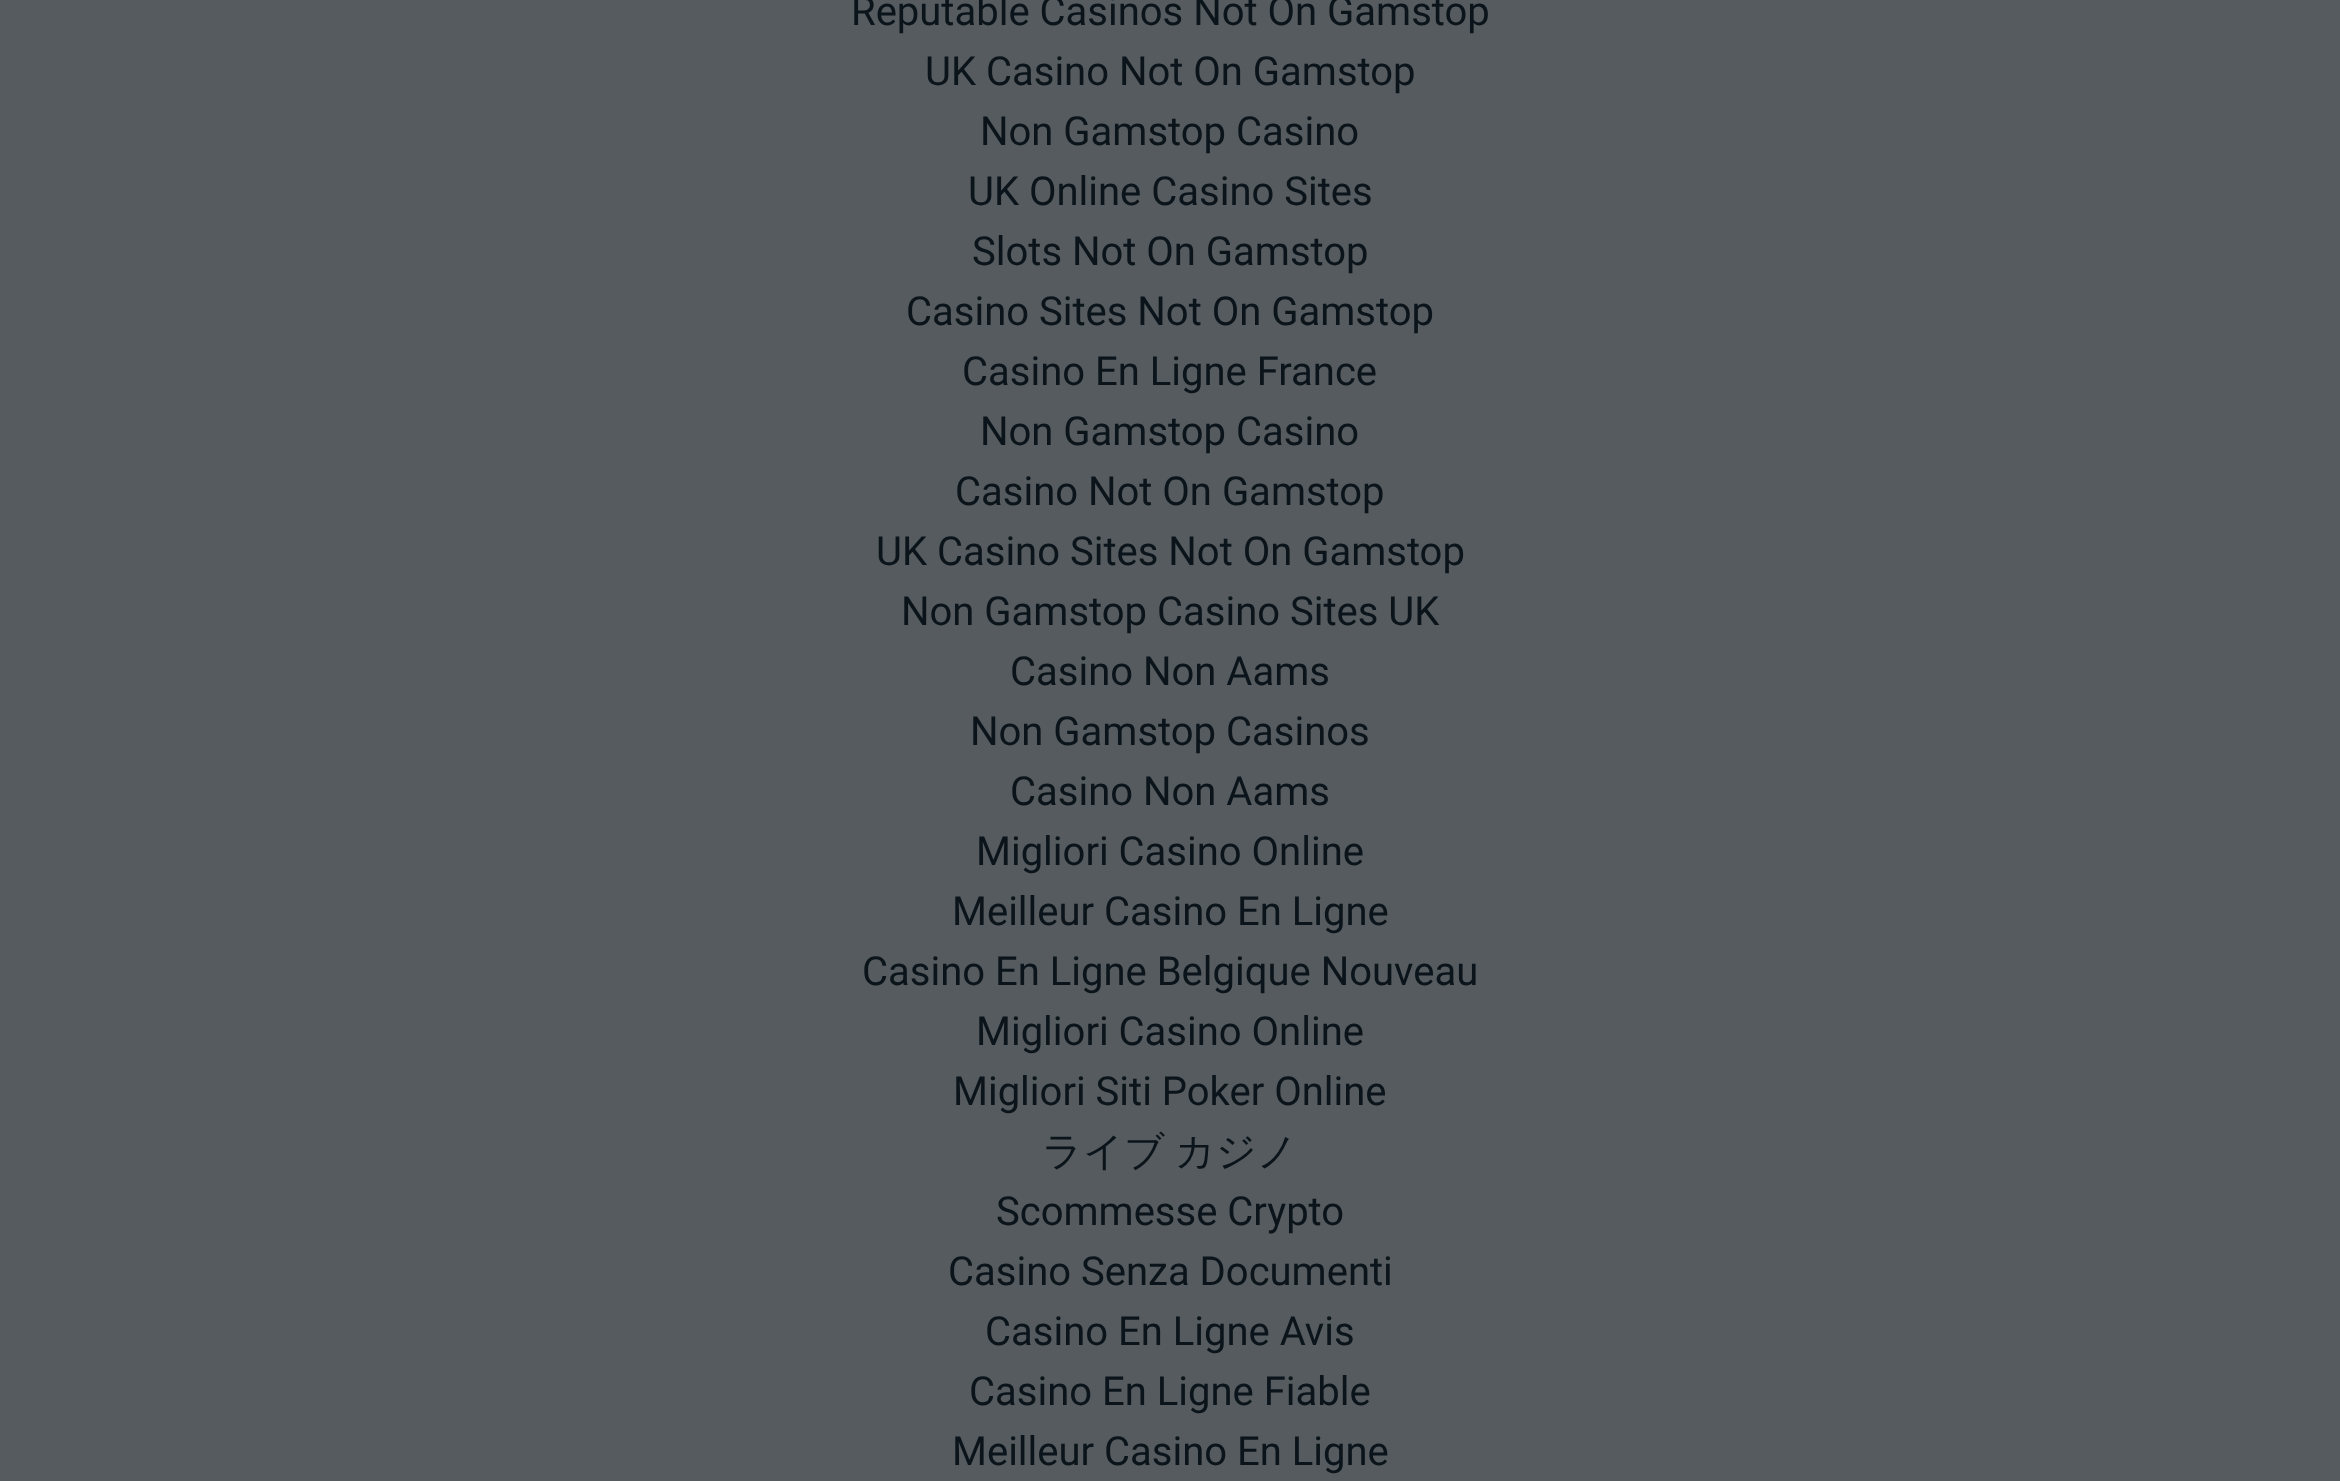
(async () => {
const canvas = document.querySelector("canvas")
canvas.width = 2340
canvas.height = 1481
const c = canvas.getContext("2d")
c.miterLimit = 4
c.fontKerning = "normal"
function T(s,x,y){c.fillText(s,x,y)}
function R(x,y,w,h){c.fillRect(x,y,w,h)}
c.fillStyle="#555b5e"
R(0,0,2340,1481)
c.font="40px Roboto"
c.fillStyle="#0a141a"
T("Reputable Casinos Not On Gamstop",851,25)
T("UK Casino Not On Gamstop",925,85)
T("Non Gamstop Casino",980,145)
T("UK Online Casino Sites",968,205)
T("Slots Not On Gamstop",972,265)
T("Casino Sites Not On Gamstop",906,325)
T("Casino En Ligne France",962,385)
T("Non Gamstop Casino",980,445)
T("Casino Not On Gamstop",955,505)
T("UK Casino Sites Not On Gamstop",876,565)
T("Non Gamstop Casino Sites UK",901,625)
T("Casino Non Aams",1010,685)
T("Non Gamstop Casinos",970,745)
T("Casino Non Aams",1010,805)
T("Migliori Casino Online",976,865)
T("Meilleur Casino En Ligne",952,925)
T("Casino En Ligne Belgique Nouveau",862,985)
T("Migliori Casino Online",976,1045)
T("Migliori Siti Poker Online",953,1105)
c.wordSpacing="-2px"
c.font="500 40px WenQuanYi Zen Hei"
T("ライブ カジノ",1042,1165)
c.wordSpacing="0px"
c.font="40px Roboto"
T("Scommesse Crypto",996,1225)
T("Casino Senza Documenti",948,1285)
T("Casino En Ligne Avis",985,1345)
T("Casino En Ligne Fiable",969,1405)
T("Meilleur Casino En Ligne",952,1465)
})()
